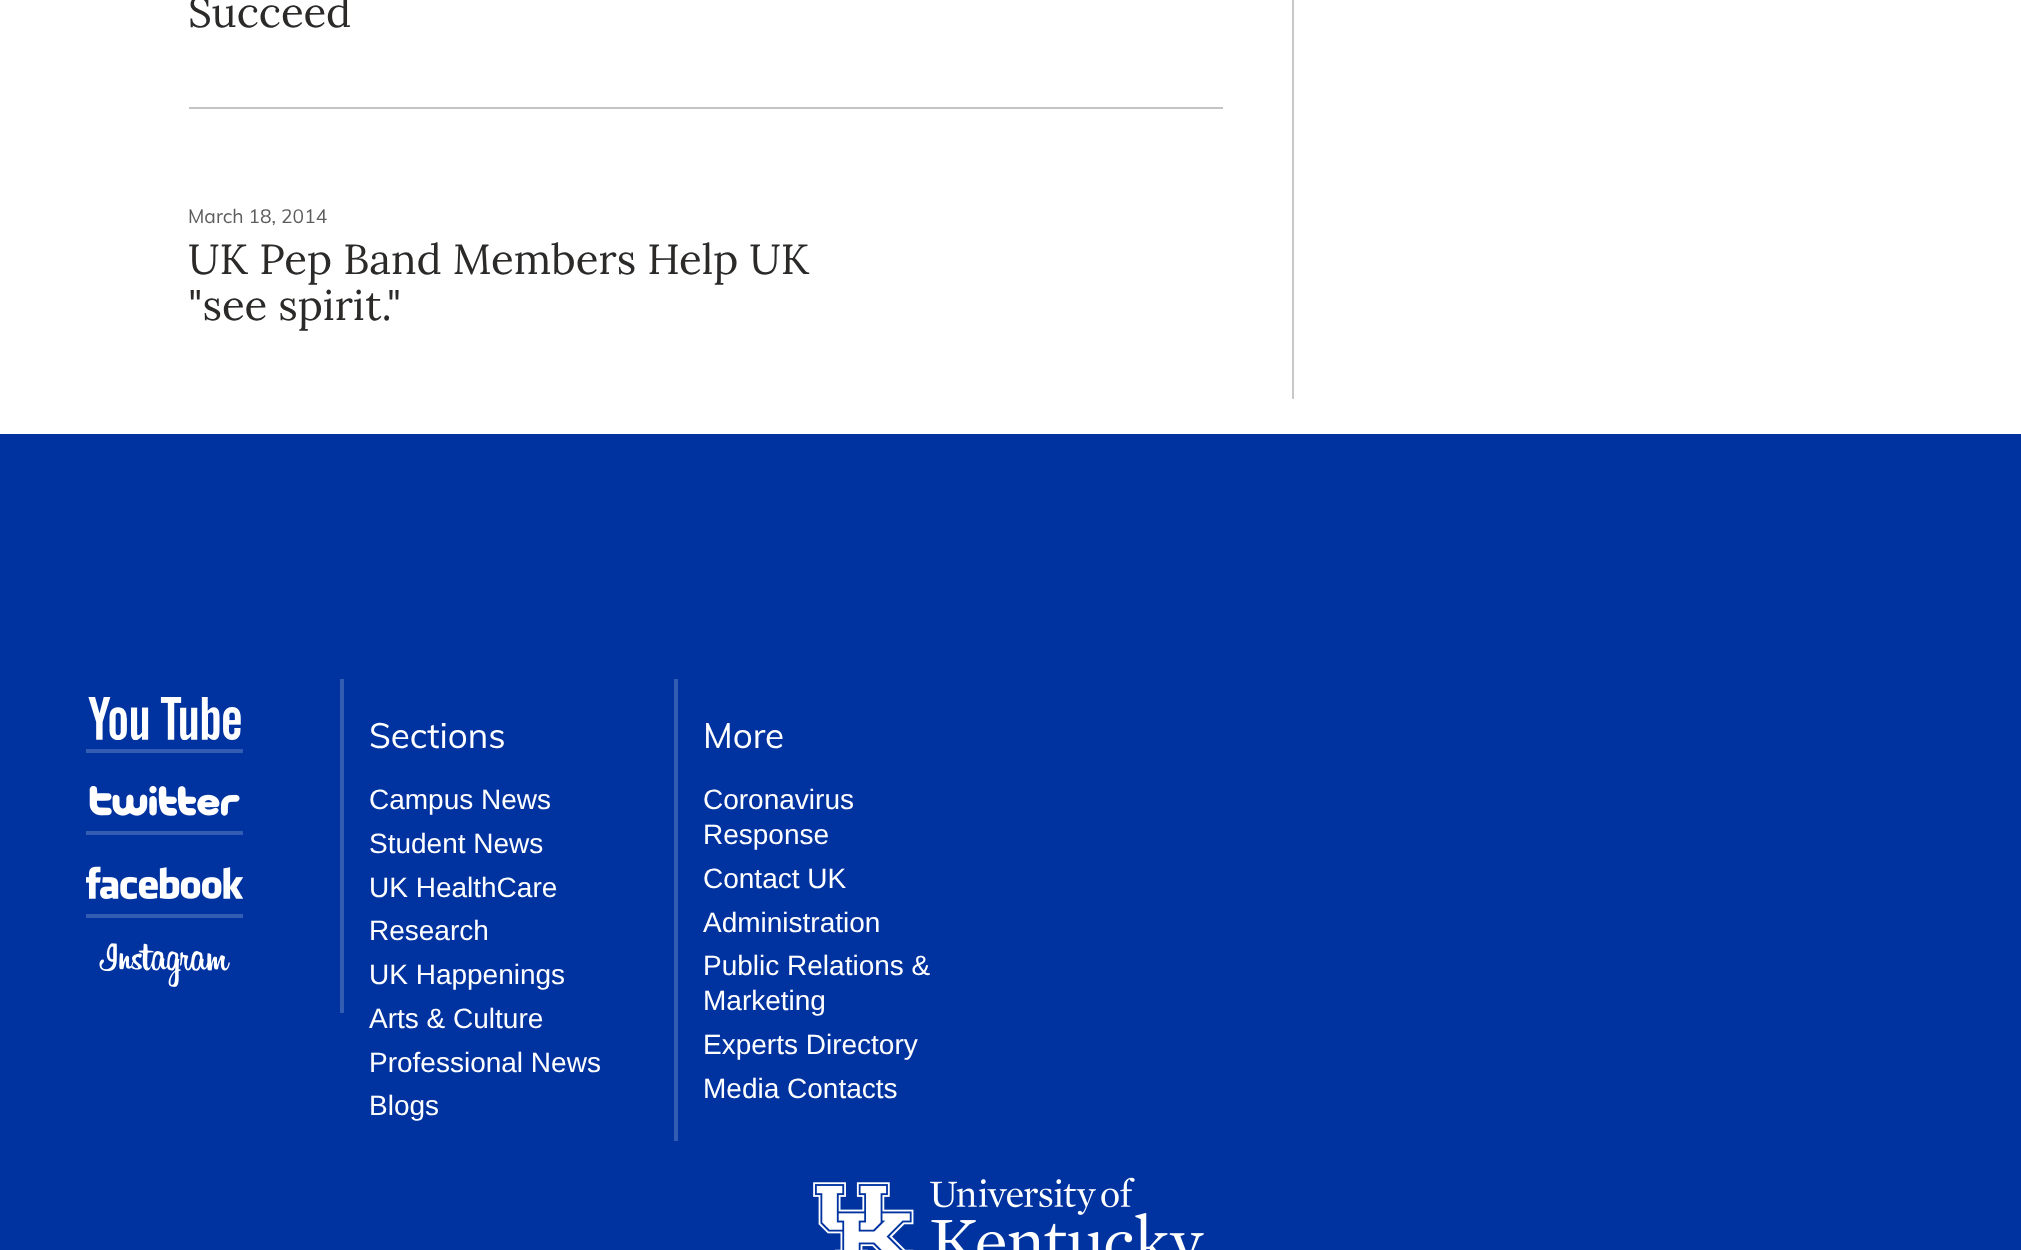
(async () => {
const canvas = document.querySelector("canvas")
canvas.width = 2021
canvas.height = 1250
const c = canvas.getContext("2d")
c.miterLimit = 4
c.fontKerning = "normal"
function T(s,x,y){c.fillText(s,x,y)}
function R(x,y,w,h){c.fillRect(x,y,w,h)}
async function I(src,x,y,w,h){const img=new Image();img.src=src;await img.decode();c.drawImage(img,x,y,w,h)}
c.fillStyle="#0033a0"
R(0,0,2021,1250)
c.fillStyle="#fff"
R(0,0,2021,434)
c.fillStyle="#c8c8c7"
R(1292,0,2,399)
c.fillStyle="#c3c3c3"
R(189,107,1034,2)
c.font="42px Lora"
c.fillStyle="#2c2a29"
T("Succeed",188,27)
c.font="19.25px Muli"
c.fillStyle="#5d5d5d"
T("March 18, 2014",188,223)
c.font="42px Lora"
c.fillStyle="#2c2a29"
T("UK Pep Band Members Help UK",188,274)
T("\"see spirit.\"",188,320)
c.fillStyle="#335cb3"
R(340,679,4,334)
R(86,749,157,4)
await I("1.png",88,697,153,43)
R(86,831,157,4)
await I("2.png",89,785,151,31)
R(86,914,157,4)
await I("3.png",86,866,157,34)
await I("4.png",99,943,131,44)
R(674,679,4,462)
c.font="35px Muli"
c.fillStyle="#fff"
T("Sections",369,748)
c.font="28px Liberation Sans"
T("Campus News",369,809)
T("Student News",369,853)
T("UK HealthCare",369,897)
T("Research",369,940)
T("UK Happenings",369,984)
T("Arts & Culture",369,1028)
T("Professional News",369,1072)
T("Blogs",369,1115)
c.font="35px Muli"
T("More",703,748)
c.font="28px Liberation Sans"
T("Coronavirus",703,809)
T("Response",703,844)
T("Contact UK",703,888)
T("Administration",703,932)
T("Public Relations &",703,975)
T("Marketing",703,1010)
T("Experts Directory",703,1054)
T("Media Contacts",703,1098)
await I("5.png",813,1177,391,73)
})()
